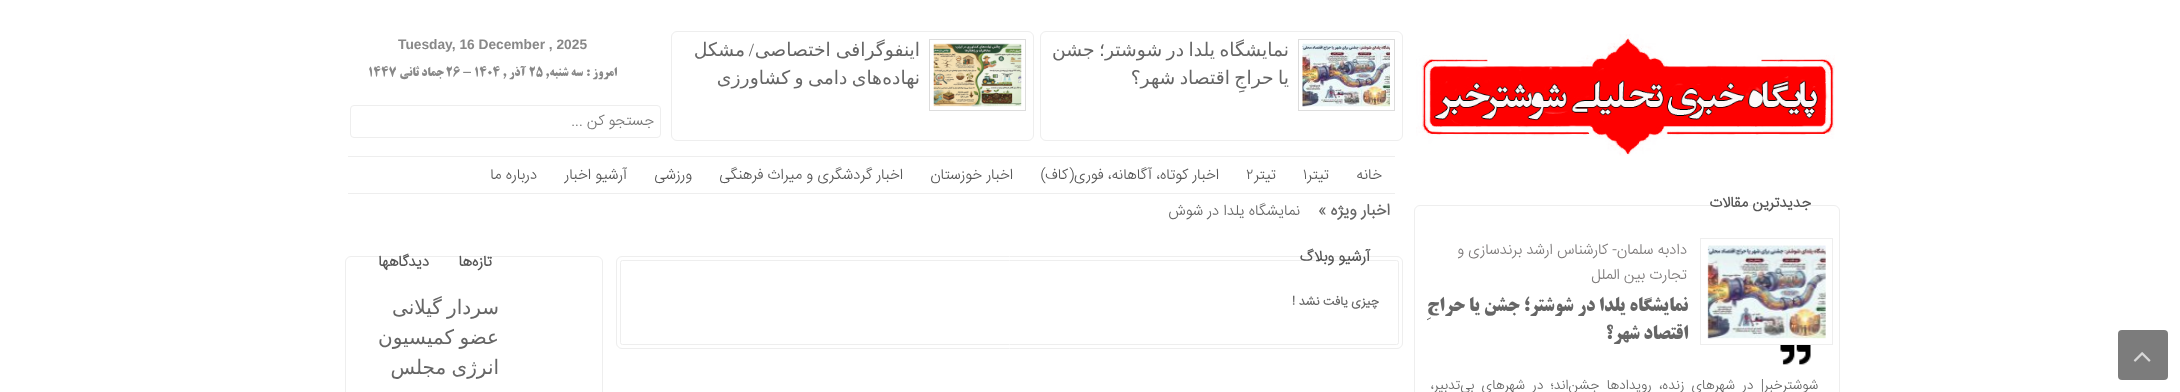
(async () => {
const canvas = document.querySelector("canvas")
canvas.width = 2180
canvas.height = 392
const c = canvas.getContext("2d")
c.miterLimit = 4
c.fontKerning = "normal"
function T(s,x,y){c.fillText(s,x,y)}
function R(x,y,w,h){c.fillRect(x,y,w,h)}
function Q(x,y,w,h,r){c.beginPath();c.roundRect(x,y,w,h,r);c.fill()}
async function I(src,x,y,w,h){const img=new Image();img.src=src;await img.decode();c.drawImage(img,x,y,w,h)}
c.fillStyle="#fff"
R(0,0,2180,392)
c.fillStyle="#7c7c7c"
Q(2118,330,50,50,4)
await I("1.png",2133,352,18,10)
await I("2.png",1416,34,419,122)
c.beginPath()
c.roundRect(1414.5,205.5,425,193,5.5)
c.strokeStyle="#eee"
c.stroke()
c.direction="rtl"
c.font="bold 15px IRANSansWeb"
c.fillStyle="#555"
T("جدیدترین مقالات",1811,207)
c.strokeRect(1700.5,238.5,132,106)
await I("3.png",1707,245,119,94)
c.font="300 15px IRANSansWeb"
c.fillStyle="#7d7a7a"
T("دادبه سلمان- کارشناس ارشد برندسازی و",1687,254)
T("تجارت بین الملل",1687,279)
c.font="bold 19.5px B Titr"
c.fillStyle="#666"
T("نمایشگاه یلدا در شوشتر؛ جشن یا حراجِ",1688,311)
T("اقتصاد شهر؟",1688,339)
await I("4.png",1780,345,31,20)
c.wordSpacing="3.5px"
c.font="300 13.75px IRANSansWeb"
T("شوشترخبر| در شهرهای زنده، رویدادها جشن‌اند؛ در شهرهای بی‌تدبیر،",1818,389)
c.beginPath()
c.roundRect(1040.5,31.5,362,109,5.5)
c.stroke()
c.strokeStyle="#ddd"
c.strokeRect(1298.5,39.5,96,71)
await I("5.png",1302,43,88,64)
c.wordSpacing="-1.5px"
c.font="18.75px DejaVu Sans"
T("نمایشگاه یلدا در شوشتر؛ جشن",1289,56)
T("یا حراجِ اقتصاد شهر؟",1289,84)
c.beginPath()
c.roundRect(671.5,31.5,362,109,5.5)
c.strokeStyle="#eee"
c.stroke()
c.strokeStyle="#ddd"
c.strokeRect(929.5,39.5,96,71)
await I("6.png",933,43,89,64)
c.wordSpacing="-1px"
T("اینفوگرافی اختصاصی",920,56)
c.wordSpacing="0px"
c.font="18.75px Liberation Serif"
T("/",754,56)
c.font="18.75px DejaVu Sans"
T("مشکل",745,56)
c.wordSpacing="-1.5px"
T("های دامی و کشاورزی",882,84)
c.wordSpacing="0px"
T("نهاده",920,84)
c.direction="ltr"
c.font="bold 13.75px Liberation Sans"
c.fillStyle="#888"
T("Tuesday, 16 December , 2025",398,49)
c.direction="rtl"
c.font="bold 12.5px B Titr"
T("امروز :",617,76)
T("سه شنبه,",583,76)
c.direction="ltr"
T("۲۵",529,76)
c.direction="rtl"
T("آذر ,",526,76)
c.direction="ltr"
T("26 - ۱۴۰۴",446,76)
c.direction="rtl"
T("جماد ثاني",444,76)
c.direction="ltr"
T("1447",368,76)
c.beginPath()
c.roundRect(350.5,105.5,310,32,3.5)
c.strokeStyle="#eee"
c.stroke()
c.direction="rtl"
c.font="300 15px IRANSansWeb"
c.fillStyle="#757575"
T("جستجو کن ...",654,125)
c.fillStyle="#eee"
R(348,156,1047,1)
R(348,193,1047,1)
c.fillStyle="#555"
T("خانه",1382,179)
T("تیتر",1329,179)
c.direction="ltr"
T("۱",1303,179)
c.direction="rtl"
T("تیتر",1276,179)
c.direction="ltr"
T("۲",1246,179)
c.direction="rtl"
T("اخبار کوتاه، آگاهانه، فوری(کاف)",1219,179)
T("اخبار خوزستان",1013,179)
T("اخبار گردشگری و میراث فرهنگی",903,179)
T("ورزشی",692,179)
T("آرشیو اخبار",627,179)
T("درباره ما",537,179)
c.font="bold 16.25px IRANSansWeb"
c.fillStyle="#666"
T("اخبار ویژه »",1390,215)
c.font="300 15px IRANSansWeb"
T("نمایشگاه یلدا در شوش",1300,215)
c.beginPath()
c.roundRect(616.5,256.5,786,92,5.5)
c.stroke()
c.beginPath()
c.roundRect(620.5,260.5,778,84,2)
c.stroke()
c.font="bold 15px IRANSansWeb"
c.fillStyle="#555"
T("آرشیو وبلاگ",1370,261)
c.font="bold 12.5px IRANSansWeb"
c.fillStyle="#666"
T("چیزی یافت نشد !",1379,305)
c.beginPath()
c.roundRect(345.5,256.5,257,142,5.5)
c.stroke()
c.font="bold 15px IRANSansWeb"
c.fillStyle="#555"
T("تازه‌ها",492,266)
T("دیدگاهها",429,266)
c.wordSpacing="-1px"
c.font="20px DejaVu Sans"
c.fillStyle="#666"
T("سردار گیلانی",499,314)
T("عضو کمیسیون",499,344)
T("انرژی مجلس",499,374)
})()
